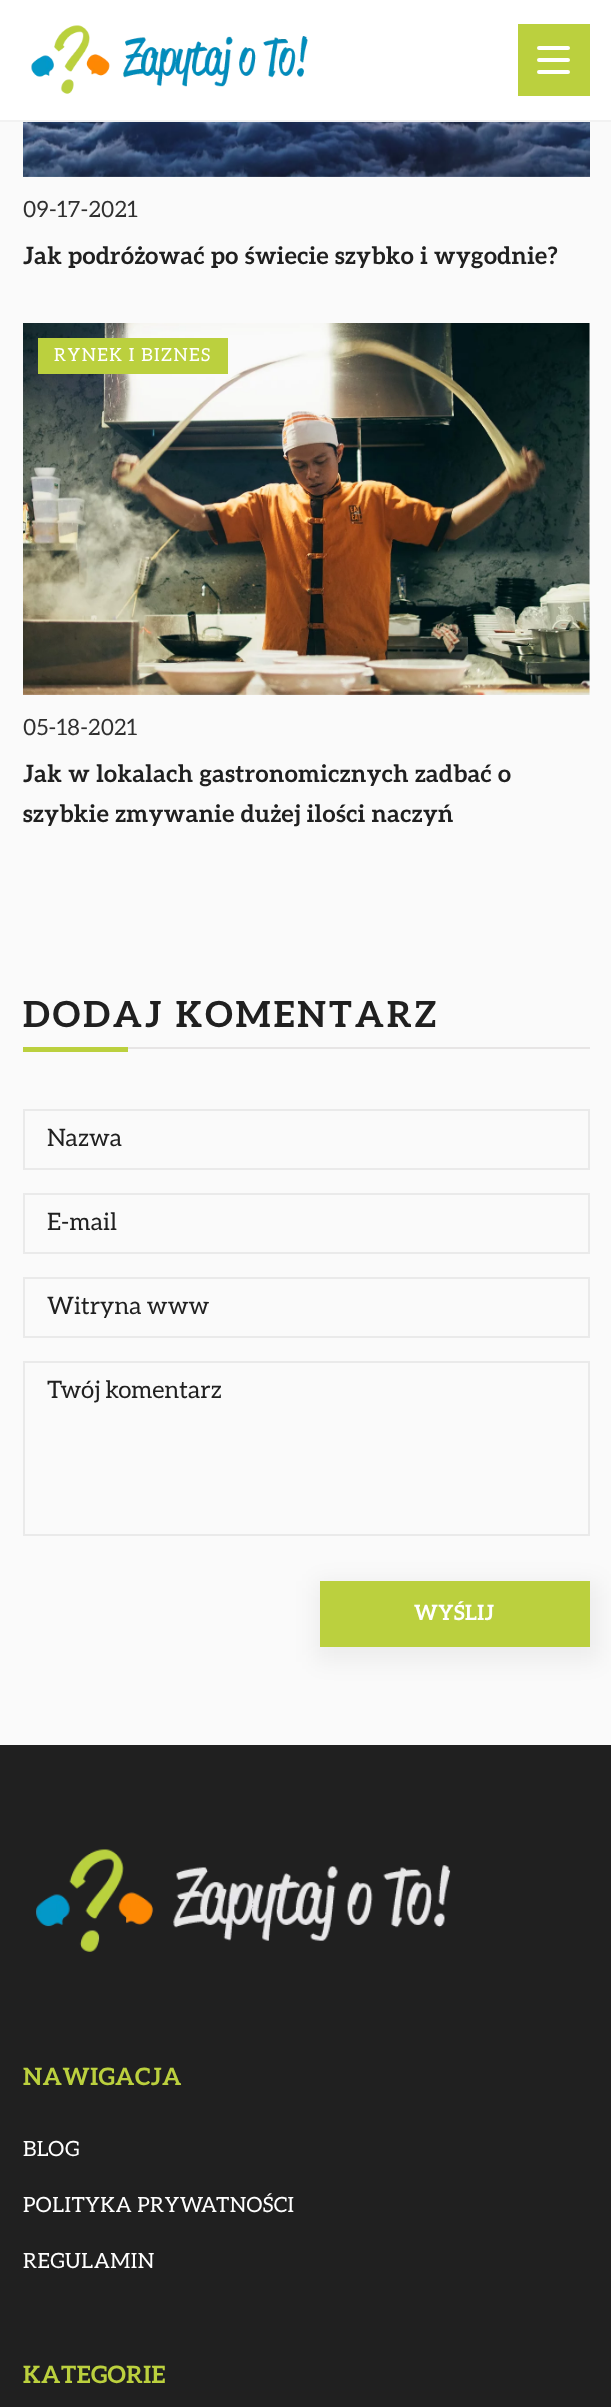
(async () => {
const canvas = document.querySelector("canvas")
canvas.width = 611
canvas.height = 2407
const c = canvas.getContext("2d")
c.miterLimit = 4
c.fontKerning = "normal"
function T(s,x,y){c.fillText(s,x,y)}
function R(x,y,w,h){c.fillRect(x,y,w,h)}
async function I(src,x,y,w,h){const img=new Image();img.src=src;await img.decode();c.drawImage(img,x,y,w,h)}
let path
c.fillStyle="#fafafa"
R(0,0,611,2407)
c.fillStyle="#fff"
R(0,0,611,120)
c.fillStyle="#f2f2f2"
R(0,120,611,2)
await I("1.png",31,25,277,69)
c.fillStyle="#bbd03e"
R(518,24,72,72)
path = new Path2D("M539 48h29m-29 12h29m0 12h-29")
c.strokeStyle="#fff"
c.lineWidth=4
c.lineCap="round"
c.stroke(path)
await I("2.png",23,122,567,55)
c.letterSpacing="0.45px"
c.font="22.5px Aleo"
c.fillStyle="#303030"
T("09-17-2021",23,217)
c.font="bold 24px Aleo"
c.fillStyle="#202020"
T("Jak podróżować po świecie szybko i wygodnie?",23,264)
await I("3.png",23,323,567,372)
c.fillStyle="#bbd03e"
R(38,338,190,36)
c.letterSpacing="1.5px"
c.font="18px Aleo"
c.fillStyle="#fff"
T("RYNEK I BIZNES",54,361)
c.letterSpacing="0.45px"
c.font="22.5px Aleo"
c.fillStyle="#303030"
T("05-18-2021",23,735)
c.font="bold 24px Aleo"
c.fillStyle="#202020"
T("Jak w lokalach gastronomicznych zadbać o",23,782)
T("szybkie zmywanie dużej ilości naczyń",23,822)
c.fillStyle="#e7e5e5"
R(128,1047,462,2)
c.letterSpacing="3px"
c.font="bold 36px Aleo"
c.fillStyle="#202020"
T("DODAJ KOMENTARZ",23,1027)
c.fillStyle="#bbd03e"
R(23,1047,105,5)
c.strokeStyle="#eaeaea"
c.lineWidth=2
c.strokeRect(24,1110,565,59)
c.letterSpacing="0px"
c.font="24px Aleo"
c.fillStyle="#202020"
T("Nazwa",47,1146)
c.strokeRect(24,1194,565,59)
T("E-mail",47,1230)
c.strokeRect(24,1278,565,59)
T("Witryna www",47,1314)
c.strokeRect(24,1362,565,173)
T("Twój komentarz",47,1398)
c.fillStyle="#0000000d"
c.filter="blur(11px)"
c.beginPath()
c.rect(315,1581,285,81)
c.fill()
c.filter="none"
c.fillStyle="#bbd03e"
R(320,1581,270,66)
c.letterSpacing="0.45px"
c.font="bold 21px Aleo"
c.fillStyle="#fff"
T("WYŚLIJ",414,1620)
c.fillStyle="#202020"
R(0,1745,611,662)
await I("4.png",36,1849,415,103)
c.font="bold 24px Aleo"
c.fillStyle="#bbd03e"
T("NAWIGACJA",23,2085)
c.font="21px Aleo"
c.fillStyle="#fff"
T("BLOG",23,2156)
T("POLITYKA PRYWATNOŚCI",23,2212)
T("REGULAMIN",23,2268)
c.font="bold 24px Aleo"
c.fillStyle="#bbd03e"
T("KATEGORIE",23,2383)
})()
